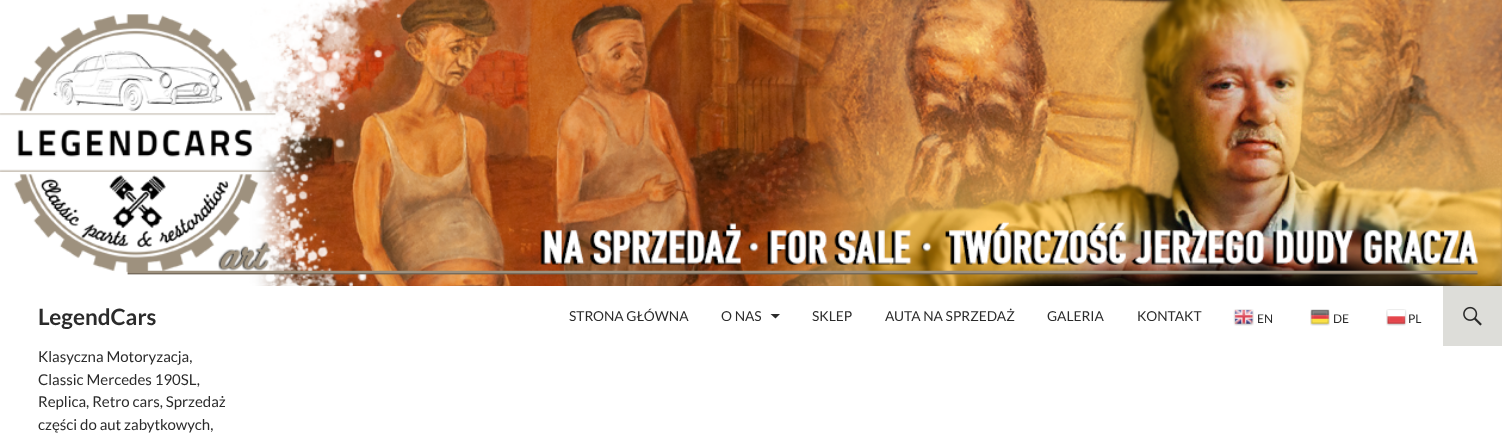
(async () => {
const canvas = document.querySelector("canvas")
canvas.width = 1502
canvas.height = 443
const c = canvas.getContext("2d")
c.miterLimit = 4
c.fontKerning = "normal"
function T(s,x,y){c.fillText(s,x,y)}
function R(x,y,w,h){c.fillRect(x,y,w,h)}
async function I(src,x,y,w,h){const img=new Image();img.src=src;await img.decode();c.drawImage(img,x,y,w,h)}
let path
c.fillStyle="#fff"
R(0,0,1502,443)
await I("1.png",0,0,1502,286)
c.font="bold 22.5px Lato"
c.fillStyle="#2b2b2b"
T("LegendCars",38,325)
c.font="13.75px Lato"
T("STRONA GŁÓWNA",569,321)
T("O NAS",721,321)
path = new Path2D("M770.5 314h9.5l-4.5 4.5z")
c.fill(path)
T("SKLEP",812,321)
T("AUTA NA SPRZEDAŻ",885,321)
T("GALERIA",1047,321)
T("KONTAKT",1137,321)
await I("2.png",1233,309,21,17)
c.font="12px Lato"
T("EN",1257,323)
await I("3.png",1310,309,20,17)
T("DE",1333,323)
await I("4.png",1386,309,21,17)
T("PL",1408,323)
c.fillStyle="#ddddd9"
R(1443,286,59,60)
await I("5.png",1463,306,19,20)
c.font="15px Lato"
c.fillStyle="#2b2b2b"
T("Klasyczna Motoryzacja,",38,362)
T("Classic Mercedes 190SL,",38,385)
T("Replica, Retro cars, Sprzedaż",38,407)
T("części do aut zabytkowych,",38,430)
})()
